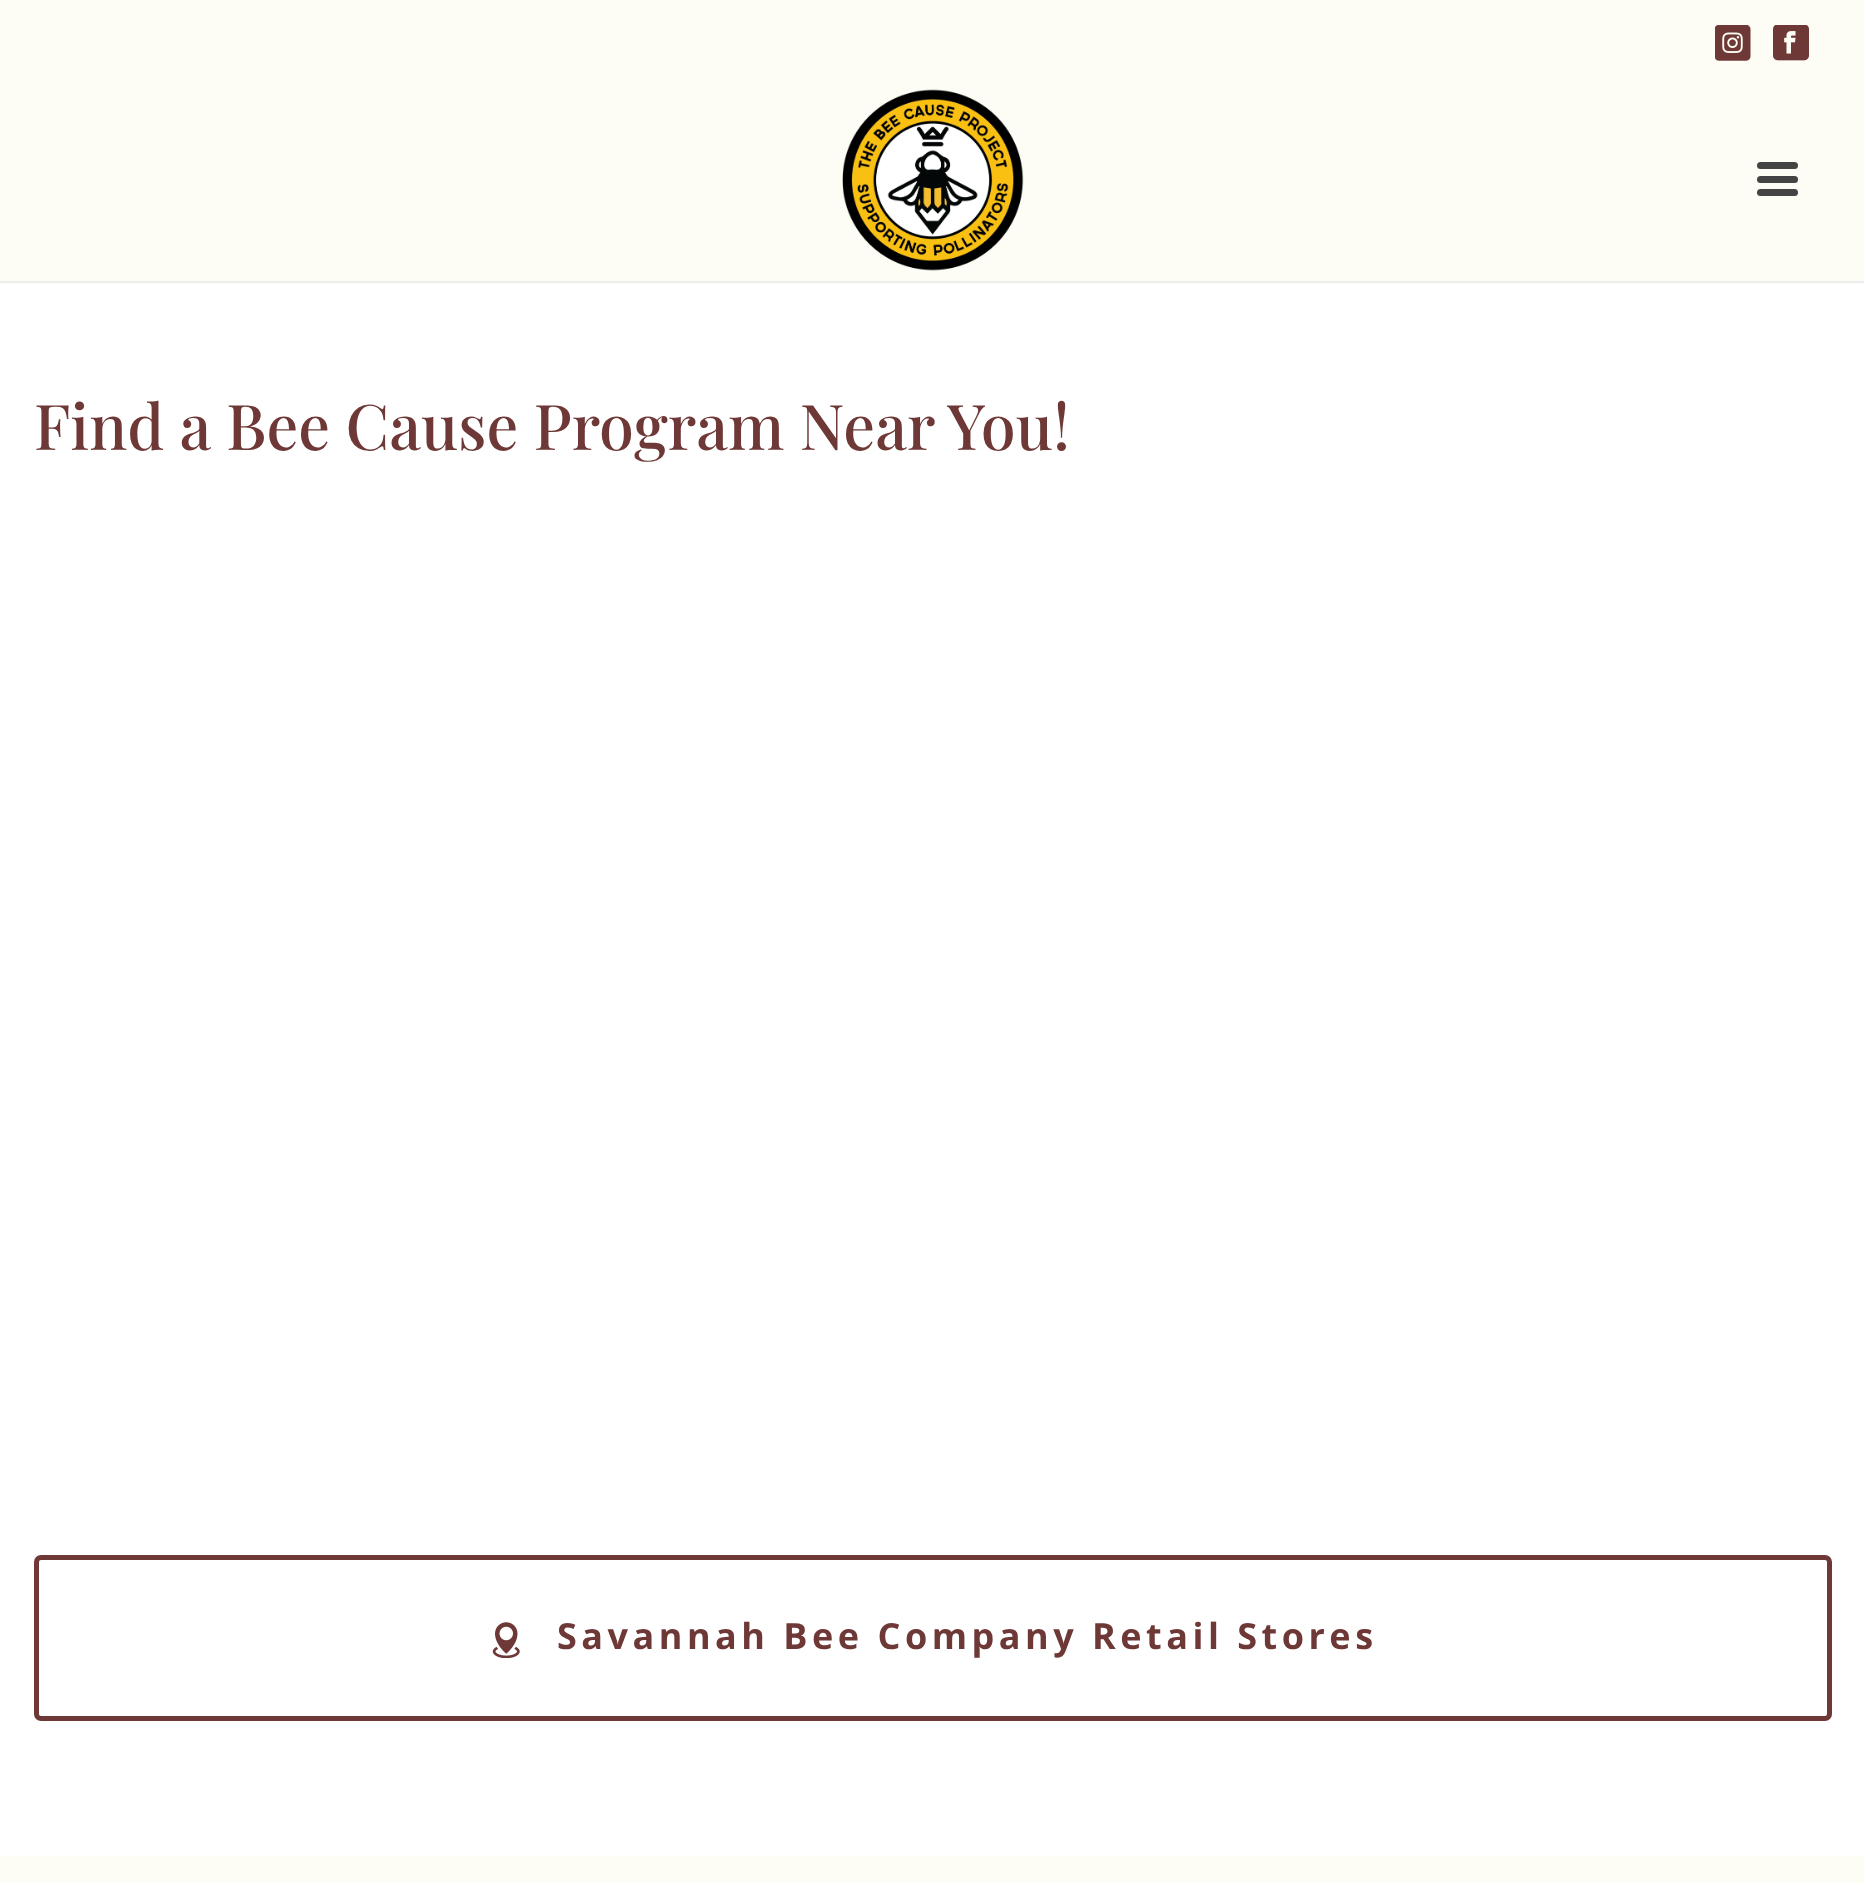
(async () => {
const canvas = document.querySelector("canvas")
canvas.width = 1864
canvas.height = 1883
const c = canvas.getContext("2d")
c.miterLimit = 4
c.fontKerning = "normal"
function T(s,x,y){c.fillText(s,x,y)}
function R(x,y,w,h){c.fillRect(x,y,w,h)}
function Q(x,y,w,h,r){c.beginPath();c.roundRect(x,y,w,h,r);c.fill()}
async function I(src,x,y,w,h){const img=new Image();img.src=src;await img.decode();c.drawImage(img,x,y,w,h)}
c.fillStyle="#fff"
R(0,0,1864,1883)
c.fillStyle="#fdfdf5"
R(0,0,1864,284)
await I("1.png",1715,25,36,36)
await I("2.png",1773,25,36,36)
c.fillStyle="#ededed"
R(0,281,1864,2)
await I("3.png",842,89,182,182)
c.fillStyle="#444"
Q(1757,162,41,7,3.5)
Q(1757,176,41,7,3.5)
Q(1757,189,41,7,3.5)
c.font="500 63px Playfair Display"
c.fillStyle="#6e3837"
T("Find a Bee Cause Program Near You!",34,450)
c.beginPath()
c.roundRect(36.5,1557.5,1793,161,4.5)
c.strokeStyle="#6e3837"
c.lineWidth=5
c.stroke()
await I("4.png",492,1622,28,36)
c.letterSpacing="4.5px"
c.font="bold 36px Open Sans"
T("Savannah Bee Company Retail Stores",557,1649)
c.fillStyle="#fdfdf5"
R(0,1856,1864,27)
})()
